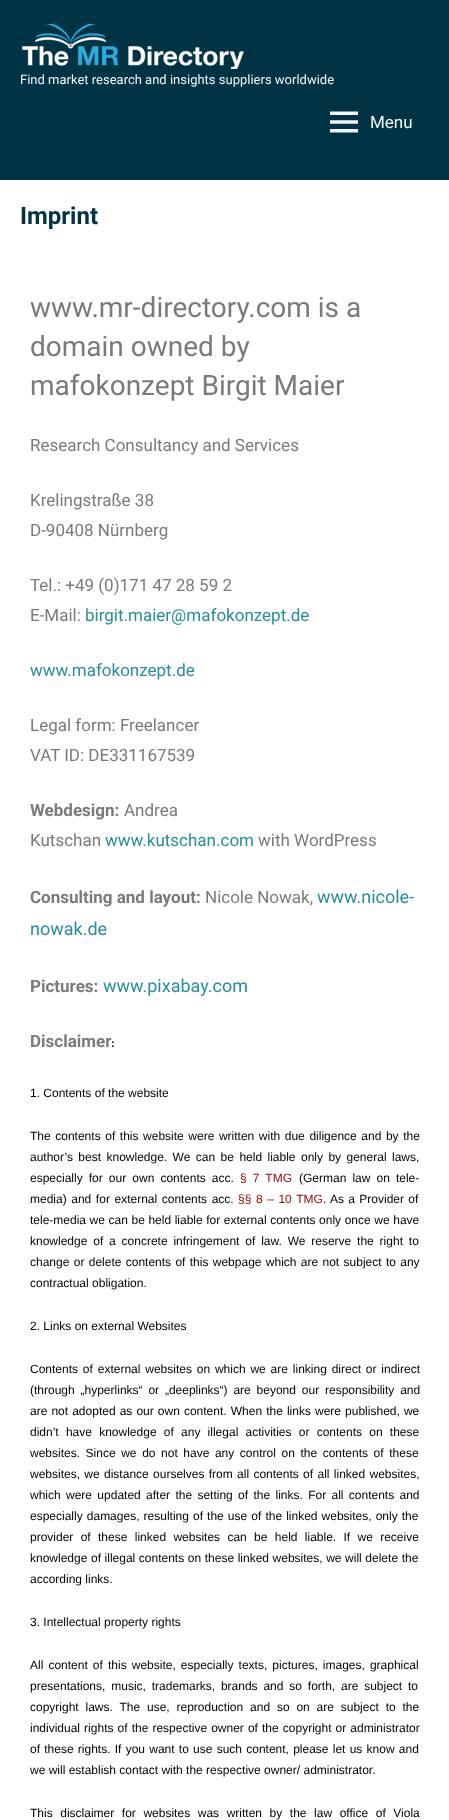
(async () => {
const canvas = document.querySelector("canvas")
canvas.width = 449
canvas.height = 1820
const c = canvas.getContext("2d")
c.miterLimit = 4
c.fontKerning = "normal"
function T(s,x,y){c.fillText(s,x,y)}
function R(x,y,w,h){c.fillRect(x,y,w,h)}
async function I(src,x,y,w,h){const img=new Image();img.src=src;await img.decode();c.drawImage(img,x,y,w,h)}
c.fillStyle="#fff"
R(0,0,449,1820)
c.fillStyle="#034"
R(0,0,449,180)
await I("1.png",22,24,222,45)
c.font="13px Roboto"
c.fillStyle="#f2f5f6"
T("Find market research and insights suppliers worldwide",20,84)
await I("2.png",330,111,28,22)
c.font="17px Roboto"
T("Menu",370,128)
c.font="bold 24px Roboto"
c.fillStyle="#034"
T("Imprint",20,224)
c.font="28px Roboto"
c.fillStyle="#7a7a7a"
T("www.mr-directory.com is a",30,317)
T("domain owned by",30,356)
T("mafokonzept Birgit Maier",30,395)
c.font="17px Roboto"
T("Research Consultancy and Services",30,451)
T("Krelingstraße 38",30,506)
T("D-90408 Nürnberg",30,536)
T("Tel.: +49 (0)171 47 28 59 2",30,591)
T("E-Mail:",30,621)
c.fillStyle="#268f97"
T("birgit.maier@mafokonzept.de",85,621)
T("www.mafokonzept.de",30,676)
c.fillStyle="#7a7a7a"
T("Legal form: Freelancer",30,731)
T("VAT ID: DE331167539",30,761)
c.font="bold 17px Roboto"
T("Webdesign:",30,816)
c.font="17px Roboto"
T("Andrea",124,816)
T("Kutschan",30,846)
c.fillStyle="#268f97"
T("www.kutschan.com",105,846)
c.fillStyle="#7a7a7a"
T("with WordPress",258,846)
c.font="bold 17px Roboto"
T("Consulting and layout:",30,903)
c.font="17px Roboto"
T("Nicole Nowak,",205,903)
c.font="18px Roboto"
c.fillStyle="#268f97"
T("www.nicole-",317,903)
T("nowak.de",30,935)
c.font="bold 17px Roboto"
c.fillStyle="#7a7a7a"
T("Pictures:",30,992)
c.font="18px Roboto"
c.fillStyle="#268f97"
T("www.pixabay.com",103,992)
c.font="bold 17px Roboto"
c.fillStyle="#7a7a7a"
T("Disclaimer",30,1047)
c.letterSpacing="1px"
c.font="bold 11px Liberation Sans"
c.fillStyle="#000"
T(":",111,1047)
c.letterSpacing="0px"
c.font="12px Liberation Sans"
T("1. Contents of the website",30,1097)
c.wordSpacing="1.25px"
T("The contents of this website were written with due diligence and by the",30,1140)
c.wordSpacing="2.1px"
T("author’s best knowledge. We can be held liable only by general laws,",30,1161)
c.wordSpacing="2.75px"
T("especially for our own contents acc.",30,1182)
c.fillStyle="#a00509"
T("§ 7 TMG",240,1182)
c.fillStyle="#000"
T("(German law on tele-",299,1182)
c.wordSpacing="1.25px"
T("media) and for external contents acc.",30,1203)
c.fillStyle="#a00509"
T("§§ 8 – 10 TMG",238,1203)
c.wordSpacing="1px"
c.fillStyle="#000"
T(". As a Provider of",323,1203)
c.wordSpacing="0.25px"
T("tele-media we can be held liable for external contents only once we have",30,1224)
c.wordSpacing="2.5px"
T("knowledge of a concrete infringement of law. We reserve the right to",30,1245)
c.wordSpacing="1px"
T("change or delete contents of this webpage which are not subject to any",30,1266)
c.wordSpacing="0px"
T("contractual obligation.",30,1287)
T("2. Links on external Websites",30,1330)
c.wordSpacing="1.5px"
T("Contents of external websites on which we are linking direct or indirect",30,1373)
c.wordSpacing="2.5px"
T("(through „hyperlinks“ or „deeplinks“) are beyond our responsibility and",30,1394)
c.wordSpacing="0.75px"
T("are not adopted as our own content. When the links were published, we",30,1415)
c.wordSpacing="3.9px"
T("didn’t have knowledge of any illegal activities or contents on these",30,1436)
c.wordSpacing="2.25px"
T("websites. Since we do not have any control on the contents of these",30,1457)
c.wordSpacing="1px"
T("websites, we distance ourselves from all contents of all linked websites,",30,1478)
c.wordSpacing="2px"
T("which were updated after the setting of the links. For all contents and",30,1499)
c.wordSpacing="0.75px"
T("especially damages, resulting of the use of the linked websites, only the",30,1520)
c.wordSpacing="4px"
T("provider of these linked websites can be held liable. If we receive",30,1541)
c.wordSpacing="0.25px"
T("knowledge of illegal contents on these linked websites, we will delete the",30,1562)
c.wordSpacing="0px"
T("according links.",30,1583)
T("3. Intellectual property rights",30,1626)
c.wordSpacing="1.75px"
T("All content of this website, especially texts, pictures, images, graphical",30,1669)
c.wordSpacing="2.5px"
T("presentations, music, trademarks, brands and so forth, are subject to",30,1690)
c.wordSpacing="3.5px"
T("copyright laws. The use, reproduction and so on are subject to the",30,1711)
c.wordSpacing="0.75px"
T("individual rights of the respective owner of the copyright or administrator",30,1732)
c.wordSpacing="0.9px"
T("of these rights. If you want to use such content, please let us know and",30,1753)
c.wordSpacing="0px"
T("we will establish contact with the respective owner/ administrator.",30,1774)
c.wordSpacing="4.25px"
T("This disclaimer for websites was written by the law office of Viola",30,1817)
})()
